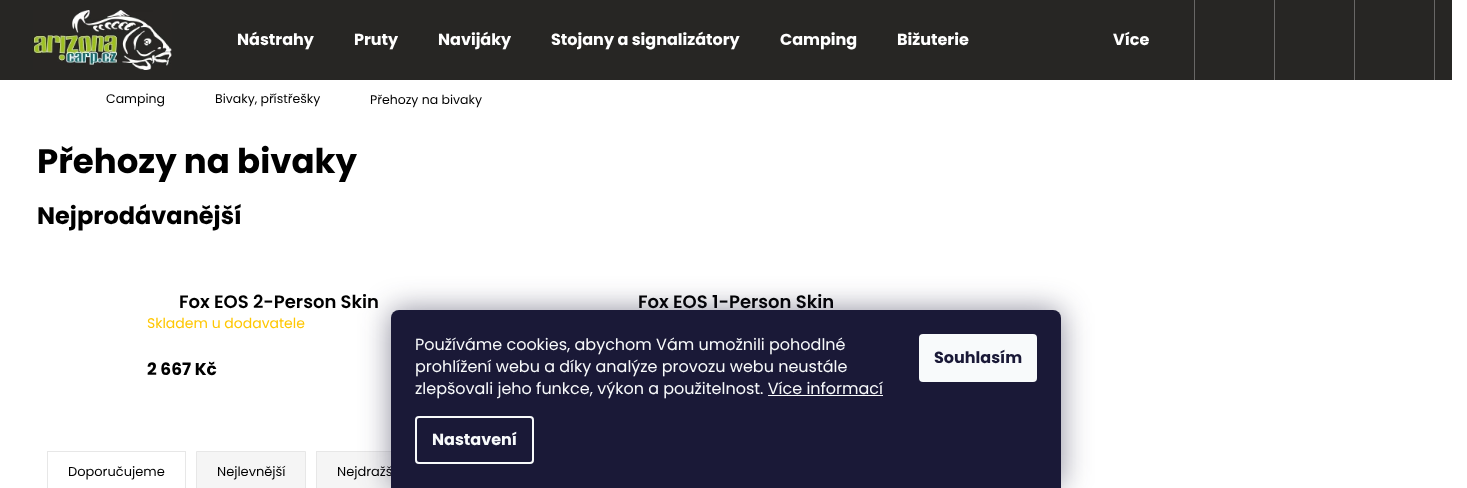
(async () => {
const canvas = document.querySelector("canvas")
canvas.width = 1467
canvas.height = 488
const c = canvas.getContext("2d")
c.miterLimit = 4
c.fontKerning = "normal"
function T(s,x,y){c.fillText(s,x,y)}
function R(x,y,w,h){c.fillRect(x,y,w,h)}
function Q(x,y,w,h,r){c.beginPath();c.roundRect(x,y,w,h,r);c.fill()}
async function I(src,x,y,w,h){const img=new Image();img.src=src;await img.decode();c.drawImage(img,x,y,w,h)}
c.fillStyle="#fff"
R(0,0,1467,488)
c.fillStyle="#272624"
R(0,0,1452,80)
await I("1.png",33,10,139,60)
c.font="bold 16px Poppins"
c.fillStyle="#fff"
T("Nástrahy",237,45)
T("Pruty",354,45)
T("Navijáky",438,45)
T("Stojany a signalizátory",551,45)
T("Camping",780,45)
T("Bižuterie",897,45)
T("Více",1113,45)
c.fillStyle="#686766"
R(1434,0,1,80)
R(1194,0,1,80)
R(1274,0,1,80)
R(1354,0,1,80)
c.font="12.5px Poppins"
c.fillStyle="#000"
T("Camping",106,103)
T("Bivaky, přístřešky",215,103)
T("Přehozy na bivaky",370,104)
c.font="bold 34px Poppins"
T("Přehozy na bivaky",37,173)
c.font="bold 24px Poppins"
T("Nejprodávanější",37,224)
c.font="600 18px Poppins"
T("Fox EOS 2-Person Skin",179,308)
c.font="14px Poppins"
c.fillStyle="#ffc702"
T("Skladem u dodavatele",147,328)
c.font="bold 17px Poppins"
c.fillStyle="#000"
T("2 667 Kč",147,375)
c.font="600 18px Poppins"
T("Fox EOS 1-Person Skin",638,308)
c.fillStyle="#e7e7e7"
R(47,451,139,1)
R(185,451,1,37)
R(47,451,1,37)
c.font="13px Poppins"
c.fillStyle="#000"
T("Doporučujeme",68,476)
c.fillStyle="#f5f5f5"
c.beginPath()
c.rect(196.5,451.5,109,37)
c.fill()
c.strokeStyle="#e7e7e7"
c.stroke()
c.fillStyle="#000"
T("Nejlevnější",217,476)
c.fillStyle="#f5f5f5"
R(317,452,74,36)
c.strokeRect(316.5,451.5,100,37)
c.fillStyle="#000"
T("Nejdražš",337,476)
c.fillStyle="#1b193980"
c.filter="blur(15px)"
c.beginPath()
c.roundRect(391,310,670,178,8)
c.fill()
c.filter="none"
c.fillStyle="#1a1937"
c.beginPath()
c.roundRect(391,310,670,178,[8,8,0,0])
c.fill()
c.font="16px Poppins"
c.fillStyle="#f8fafb"
T("Používáme cookies, abychom Vám umožnili pohodlné",415,350)
T("prohlížení webu a díky analýze provozu webu neustále",415,372)
T("zlepšovali jeho funkce, výkon a použitelnost. Více informací",415,394)
R(768,395,115,1)
c.beginPath()
c.roundRect(416,417,117,46,3)
c.strokeStyle="#f8fafb"
c.lineWidth=2
c.stroke()
c.font="bold 16px Poppins"
T("Nastavení",432,445)
Q(919,334,118,48,4)
c.fillStyle="#1a1937"
T("Souhlasím",934,363)
})()
